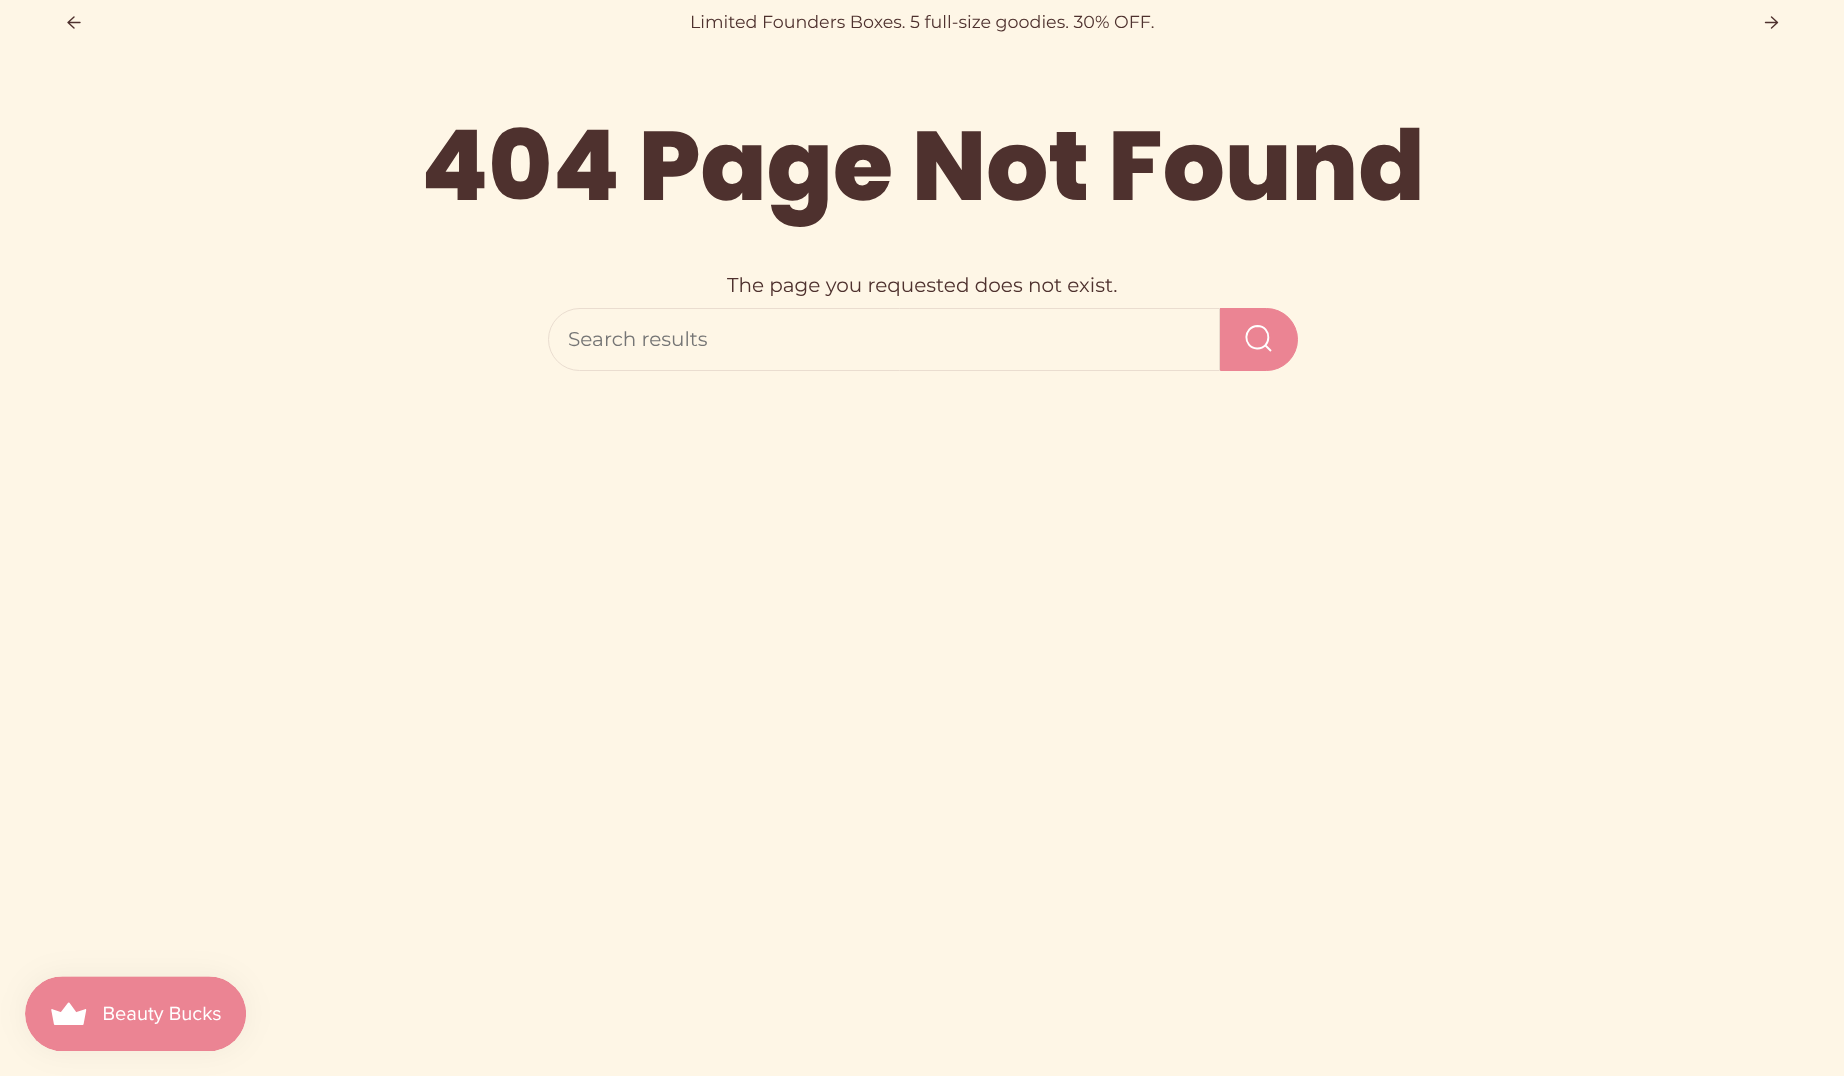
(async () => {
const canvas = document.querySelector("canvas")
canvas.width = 1844
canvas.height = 1076
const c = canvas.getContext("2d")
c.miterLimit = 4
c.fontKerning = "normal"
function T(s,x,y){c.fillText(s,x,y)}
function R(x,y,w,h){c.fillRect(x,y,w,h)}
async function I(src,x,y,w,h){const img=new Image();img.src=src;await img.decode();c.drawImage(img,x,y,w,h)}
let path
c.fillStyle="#fef6e6"
R(0,0,1844,1076)
path = new Path2D("M80 22.5h-12m0 0l6-5.5m-6 5.5l6 5.5")
c.strokeStyle="#4e312e"
c.lineWidth=1.4
c.lineCap="round"
c.lineJoin="round"
c.stroke(path)
c.font="17.5px Montserrat"
c.fillStyle="#4e312e"
T("Limited Founders Boxes. 5 full-size goodies. 30% OFF.",690,28)
path = new Path2D("M1765.5 22.5h12m0 0l-6-5.5m6 5.5l-6 5.5")
c.stroke(path)
c.font="800 97.5px Poppins"
T("404 Page Not Found",421,200)
c.font="20px Montserrat"
T("The page you requested does not exist.",727,292)
c.beginPath()
c.roundRect(548.5,308.5,671,62,[31,0,0,31])
c.strokeStyle="#eaddd0"
c.lineWidth=1
c.lineJoin="miter"
c.stroke()
c.fillStyle="#757575"
T("Search results",568,346)
c.fillStyle="#eb8493"
c.beginPath()
c.roundRect(1220.5,308.5,77,62,[0,31,31,0])
c.fill()
c.strokeStyle="#eb8493"
c.stroke()
path = new Path2D("M1257.5 326c14.5 0 14.5 23-.5 22.5c-14.5-1-14-22 .5-22.5zm7.5 19l6 6")
c.strokeStyle="#fff"
c.lineWidth=1.9
c.lineCap="butt"
c.stroke(path)
c.fillStyle="#0000000d"
c.filter="blur(15.5px)"
c.beginPath()
c.roundRect(25,976,221,75,37.5)
c.fill()
c.filter="none"
await I("1.png",25,976,221,75)
})()
